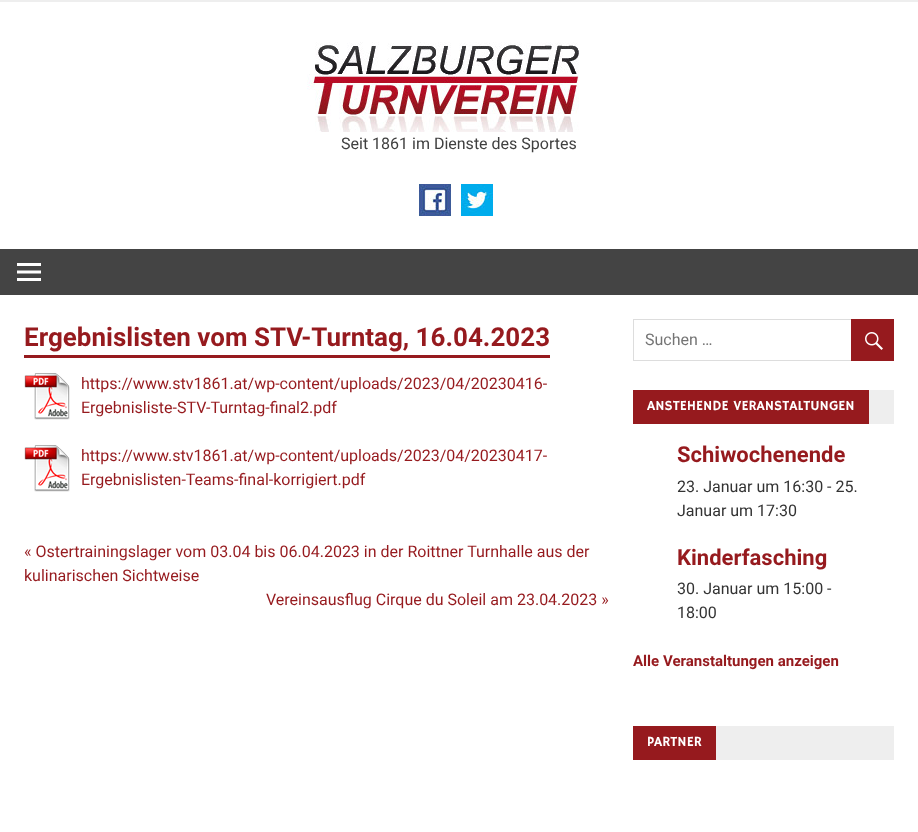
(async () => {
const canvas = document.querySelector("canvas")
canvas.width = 918
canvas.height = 832
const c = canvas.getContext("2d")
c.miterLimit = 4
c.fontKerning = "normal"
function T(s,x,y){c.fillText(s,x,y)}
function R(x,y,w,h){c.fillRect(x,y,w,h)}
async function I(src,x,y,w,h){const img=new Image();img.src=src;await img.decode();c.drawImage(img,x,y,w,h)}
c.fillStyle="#fff"
R(0,0,918,832)
c.fillStyle="#eee"
R(0,0,918,2)
await I("1.png",307,42,272,90)
c.font="16px Roboto"
c.fillStyle="#404040"
T("Seit 1861 im Dienste des Sportes",341,149)
await I("2.png",419,184,32,32)
await I("3.png",461,184,32,32)
c.fillStyle="#444"
R(0,249,918,46)
await I("4.png",17,263,24,18)
c.font="bold 26px Roboto"
c.fillStyle="#961a1e"
T("Ergebnislisten vom STV-Turntag, 16.04.2023",24,346)
R(24,355,526,3)
await I("5.png",24,373,46,47)
c.font="16px Roboto"
T("https://www.stv1861.at/wp-content/uploads/2023/04/20230416-",81,389)
T("Ergebnisliste-STV-Turntag-final2.pdf",81,413)
await I("5.png",24,445,46,47)
T("https://www.stv1861.at/wp-content/uploads/2023/04/20230417-",81,461)
T("Ergebnislisten-Teams-final-korrigiert.pdf",81,485)
T("« Ostertrainingslager vom 03.04 bis 06.04.2023 in der Roittner Turnhalle aus der",24,557)
T("kulinarischen Sichtweise",24,581)
T("Vereinsausflug Cirque du Soleil am 23.04.2023 »",266,605)
c.strokeStyle="#ddd"
c.strokeRect(633.5,319.5,260,41)
c.fillStyle="#757575"
T("Suchen …",645,345)
c.fillStyle="#961a1e"
R(851,319,43,42)
await I("6.png",865,332,18,18)
c.fillStyle="#eee"
R(869,390,25,34)
c.fillStyle="#961a1e"
R(633,390,236,34)
c.font="14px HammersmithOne"
c.fillStyle="#fff"
T("ANSTEHENDE VERANSTALTUNGEN",647,410)
c.font="bold 22px Roboto"
c.fillStyle="#961a1e"
T("Schiwochenende",677,462)
c.font="16px Roboto"
c.fillStyle="#333"
T("23. Januar um 16:30 - 25.",677,492)
T("Januar um 17:30",677,516)
c.font="bold 22px Roboto"
c.fillStyle="#961a1e"
T("Kinderfasching",677,565)
c.font="16px Roboto"
c.fillStyle="#333"
T("30. Januar um 15:00 -",677,594)
T("18:00",677,618)
c.font="bold 15px Roboto"
c.fillStyle="#961a1e"
T("Alle Veranstaltungen anzeigen",633,666)
c.fillStyle="#eee"
R(716,726,178,34)
c.fillStyle="#961a1e"
R(633,726,83,34)
c.font="14px HammersmithOne"
c.fillStyle="#fff"
T("PARTNER",647,746)
})()
